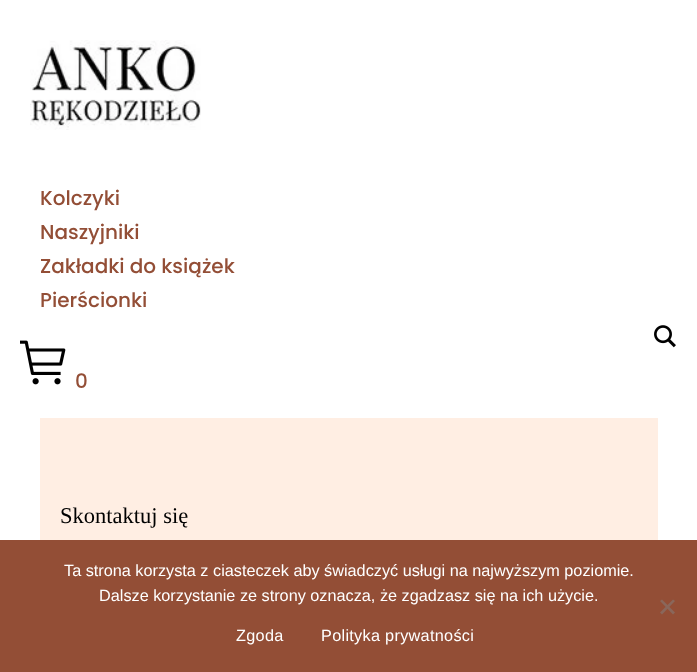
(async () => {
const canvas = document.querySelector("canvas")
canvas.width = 697
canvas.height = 672
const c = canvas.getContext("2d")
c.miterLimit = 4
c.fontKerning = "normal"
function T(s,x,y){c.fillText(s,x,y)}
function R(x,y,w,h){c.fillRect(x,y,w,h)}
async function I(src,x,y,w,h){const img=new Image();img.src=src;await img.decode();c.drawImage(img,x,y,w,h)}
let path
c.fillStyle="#fff"
R(0,0,697,672)
await I("1.png",30,40,171,90)
c.font="500 20px Poppins"
c.fillStyle="#934e36"
T("Kolczyki",40,205)
T("Naszyjniki",40,239)
T("Zakładki do książek",40,273)
T("Pierścionki",40,307)
await I("2.png",654,325,22,23)
await I("3.png",20,340,46,45)
T("0",75,388)
c.fillStyle="#ffeee3"
R(40,418,618,122)
c.font="22.5px Liberation Serif"
c.fillStyle="#000"
T("Skontaktuj się",60,523)
c.fillStyle="#934e36"
R(0,540,697,132)
c.font="16.25px Liberation Sans"
c.fillStyle="#fff"
T("Ta strona korzysta z ciasteczek aby świadczyć usługi na najwyższym poziomie.",64,576)
T("Dalsze korzystanie ze strony oznacza, że zgadzasz się na ich użycie.",99,601)
c.fillStyle="#8a675b"
path = new Path2D("M673 599.5l2 1.5l-13 13.5l-2-2z")
c.fill(path)
path = new Path2D("M660 601l2-1.5l13 13l-2 2z")
c.fill(path)
c.letterSpacing="0.3px"
c.fillStyle="#fff"
T("Zgoda",236,641)
T("Polityka prywatności",321,641)
})()
